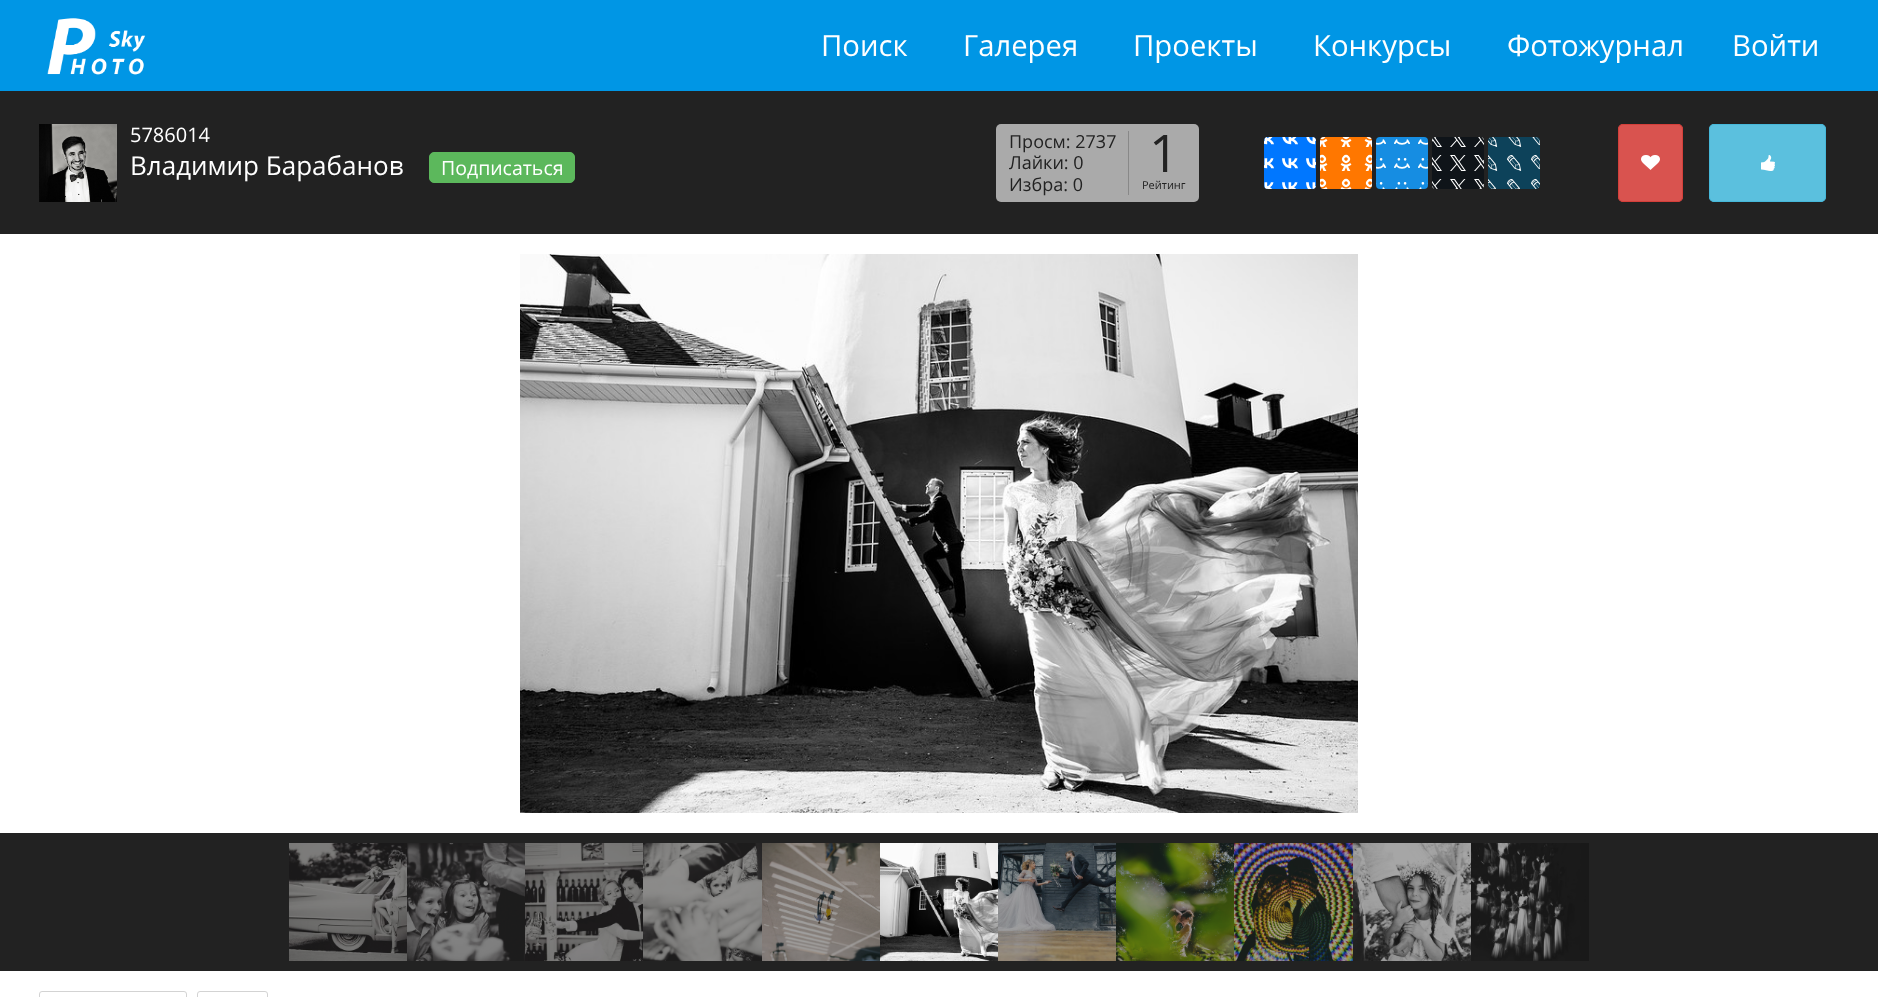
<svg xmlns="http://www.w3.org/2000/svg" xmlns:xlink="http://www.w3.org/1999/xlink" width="1878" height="997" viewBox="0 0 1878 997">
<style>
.cls-1{font:29.25px Open Sans;fill:#ffffff}
.cls-2{font:20px Open Sans;fill:#ffffff}
.cls-3{font:26px Open Sans;fill:#ffffff}
.cls-4{font:19.5px Open Sans;fill:#ffffff}
.cls-5{font:18px Open Sans;fill:#222222}
.cls-6{font:52px Open Sans;fill:#222222}
.cls-7{font:11px Open Sans;fill:#222222}
</style>
<rect width="100%" height="100%" fill="#ffffff"/>
<rect fill="#0096e5" x="0" y="0" width="1878" height="91"/>
<image xlink:href="image0.png" x="47" y="18" width="99" height="57"/>
<rect fill="#222222" x="0" y="91" width="1878" height="143"/>
<image xlink:href="image1.png" x="39" y="124" width="78" height="78"/>
<rect fill="#5cb85c" stroke="#5cb85c" x="429.5" y="152.5" width="145" height="30" rx="4.5"/>
<rect fill="#aaaaaa" x="996" y="124" width="203" height="78" rx="5"/>
<rect fill="#888888" x="1128" y="131" width="1" height="64"/>
<rect fill="#0077ff" x="1264" y="137" width="52" height="52" rx="4"/>
<image xlink:href="image2.png" x="1264" y="137" width="52" height="52"/>
<rect fill="#ff7700" x="1320" y="137" width="52" height="52" rx="4"/>
<image xlink:href="image3.png" x="1320" y="137" width="52" height="52"/>
<rect fill="#168de2" x="1376" y="137" width="52" height="52" rx="4"/>
<image xlink:href="image4.png" x="1376" y="139" width="52" height="50"/>
<rect fill="#0f1419" x="1432" y="137" width="52" height="52" rx="4"/>
<image xlink:href="image5.png" x="1432" y="137" width="52" height="52"/>
<rect fill="#0d425a" x="1488" y="137" width="52" height="52" rx="4"/>
<image xlink:href="image6.png" x="1488" y="137" width="52" height="52"/>
<rect fill="#d9534f" x="1618" y="124" width="65" height="78" rx="5"/>
<image xlink:href="image7.png" x="1641" y="155" width="19" height="15"/>
<rect fill="none" stroke="#d43f3a" x="1618.5" y="124.5" width="64" height="77" rx="4.5"/>
<rect fill="#5bc0de" x="1709" y="124" width="117" height="78" rx="5"/>
<image xlink:href="image8.png" x="1761" y="155" width="14" height="16"/>
<rect fill="none" stroke="#46b8da" x="1709.5" y="124.5" width="116" height="77" rx="4.5"/>
<image xlink:href="image9.png" x="520" y="254" width="838" height="559"/>
<rect fill="#222222" x="0" y="833" width="1878" height="138"/>
<image xlink:href="image10.png" x="289" y="843" width="118" height="118"/>
<image xlink:href="image11.png" x="407" y="843" width="118" height="118"/>
<image xlink:href="image12.png" x="525" y="843" width="118" height="118"/>
<image xlink:href="image13.png" x="643" y="843" width="119" height="118"/>
<image xlink:href="image14.png" x="762" y="843" width="118" height="118"/>
<image xlink:href="image15.png" x="880" y="843" width="118" height="118"/>
<image xlink:href="image16.png" x="998" y="843" width="118" height="118"/>
<image xlink:href="image17.png" x="1116" y="843" width="118" height="118"/>
<image xlink:href="image18.png" x="1234" y="843" width="119" height="118"/>
<image xlink:href="image19.png" x="1353" y="843" width="118" height="118"/>
<image xlink:href="image20.png" x="1471" y="843" width="118" height="118"/>
<rect fill="none" stroke="#d3d3d3" x="39.5" y="991.5" width="147" height="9" rx="2.5"/>
<rect fill="none" stroke="#d3d3d3" x="197.5" y="991.5" width="70" height="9" rx="2.5"/>
<text class="cls-1" x="821" y="56">Поиск</text>
<text class="cls-1" x="963" y="56">Галерея</text>
<text class="cls-1" x="1133" y="56">Проекты</text>
<text class="cls-1" x="1313" y="56">Конкурсы</text>
<text class="cls-1" x="1507" y="56">Фотожурнал</text>
<text class="cls-1" x="1732" y="56">Войти</text>
<text class="cls-2" x="130" y="142">5786014</text>
<text class="cls-3" x="130" y="175">Владимир Барабанов</text>
<text class="cls-4" x="441" y="175">Подписаться</text>
<text class="cls-5"><tspan x="1009" y="148">Просм: 2737</tspan><tspan x="1009" y="169">Лайки: 0</tspan><tspan x="1009" y="191">Избра: 0</tspan></text>
<text class="cls-6" x="1149" y="172">1</text>
<text class="cls-7" x="1142" y="189">Рейтинг</text>
</svg>
